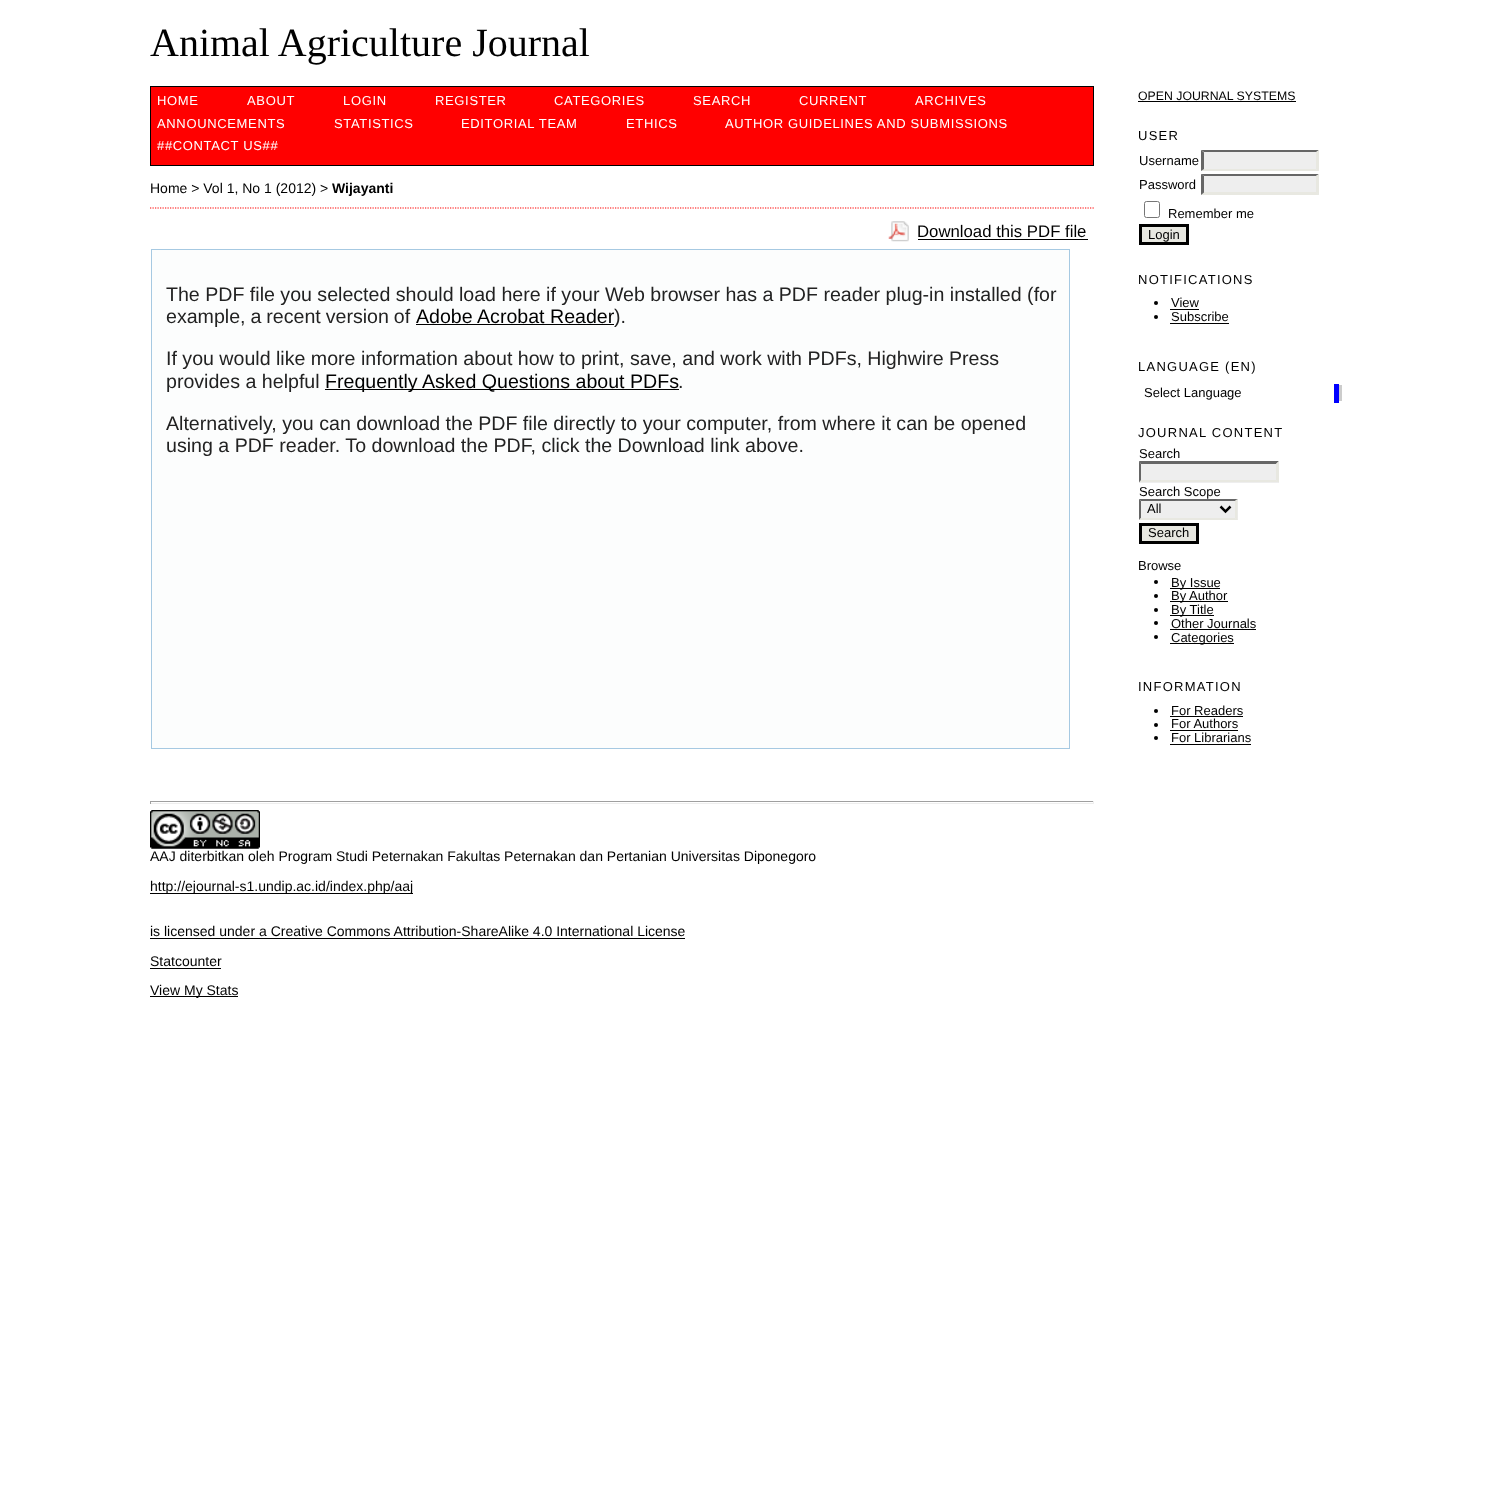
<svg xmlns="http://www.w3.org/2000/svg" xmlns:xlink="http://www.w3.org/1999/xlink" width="1497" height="1485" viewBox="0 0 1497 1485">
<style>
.cls-1{font:40px Liberation Serif;fill:#000000}
.cls-2{font:13px Liberation Sans;letter-spacing:0.65px;fill:#ffffff}
.cls-3{font:14px Liberation Sans;fill:#000000}
.cls-4{font:bold 14px Liberation Sans;fill:#000000}
.cls-5{font:16.75px Liberation Sans;fill:#000000}
.cls-6{font:19.6px Liberation Sans;fill:#222222}
.cls-7{font:19.6px Liberation Sans;fill:#000000}
.cls-8{font:12.3px Liberation Sans;fill:#000000}
.cls-9{font:13px Liberation Sans;letter-spacing:1.25px;fill:#000000}
.cls-10{font:13px Liberation Sans;fill:#000000}
</style>
<rect width="100%" height="100%" fill="#ffffff"/>
<rect fill="#ff0000" stroke="#000000" x="150.5" y="86.5" width="943" height="79"/>
<path fill="none" stroke="#ff0000" stroke-width="1.2" stroke-dasharray="1.25 1.25" d="M150 208H1094"/>
<image xlink:href="image0.png" x="888" y="221" width="21" height="21"/>
<rect fill="#000000" x="918" y="239" width="170" height="1"/>
<rect fill="#fcfdfd" stroke="#a6c9e2" x="151.5" y="249.5" width="918" height="499"/>
<rect fill="#000000" x="416" y="324" width="198" height="1"/>
<rect fill="#000000" x="325" y="389" width="354" height="1"/>
<rect fill="#9f9f9f" x="150" y="801" width="944" height="1"/>
<rect fill="#eeeeee" x="1093" y="801" width="1" height="3"/>
<rect fill="#eeeeee" x="150" y="803" width="944" height="1"/>
<rect fill="#9f9f9f" x="150" y="801" width="1" height="3"/>
<image xlink:href="image1.png" x="150" y="810" width="110" height="39"/>
<rect fill="#000000" x="150" y="893" width="263" height="1"/>
<rect fill="#000000" x="150" y="938" width="535" height="1"/>
<rect fill="#000000" x="150" y="968" width="71" height="1"/>
<rect fill="#000000" x="150" y="996" width="88" height="1"/>
<rect fill="#000000" x="1138" y="101" width="158" height="1"/>
<rect fill="#eeeeee" x="1201" y="150" width="118" height="21"/>
<path fill="#666666" d="M1201 150H1319L1316 152H1204Z"/>
<path fill="#e8e8e1" d="M1319 150V171L1316 169V152.5Z"/>
<path fill="#e8e8e1" d="M1319 171H1201L1204 169H1316Z"/>
<path fill="#666666" d="M1201 171V150L1204 152.5V169Z"/>
<rect fill="#eeeeee" x="1201" y="174" width="118" height="21"/>
<path fill="#666666" d="M1201 174H1319L1316 176H1204Z"/>
<path fill="#e8e8e1" d="M1319 174V195L1316 192.5V176Z"/>
<path fill="#e8e8e1" d="M1319 195H1201L1204 192H1316Z"/>
<path fill="#666666" d="M1201 195V174L1204 176V192.5Z"/>
<rect fill="none" stroke="#767676" x="1144.5" y="201.5" width="15" height="16" rx="2"/>
<rect fill="#e8e8e1" stroke="#000000" stroke-width="3" x="1140.5" y="225.5" width="47" height="18"/>
<circle fill="#000000" cx="1156" cy="303" r="2"/>
<rect fill="#000000" x="1170" y="309" width="29" height="1"/>
<circle fill="#000000" cx="1156" cy="317" r="2"/>
<rect fill="#000000" x="1170" y="323" width="59" height="1"/>
<rect fill="#0000ff" x="1334" y="384" width="5" height="19"/>
<rect fill="#cccccc" x="1339" y="385" width="3" height="16"/>
<rect fill="#eeeeee" x="1139" y="461" width="140" height="22"/>
<path fill="#666666" d="M1139 461H1279L1276 464H1141Z"/>
<path fill="#e8e8e1" d="M1279 461V482.5L1276 480V464Z"/>
<path fill="#e8e8e1" d="M1279 482H1139L1141 480H1276Z"/>
<path fill="#666666" d="M1139 482.5V461L1141 464V480Z"/>
<rect fill="#eeeeee" x="1139" y="499" width="99" height="21"/>
<path fill="#666666" d="M1139 499H1238L1235 501H1141Z"/>
<path fill="#e8e8e1" d="M1237.5 499V520L1235 517.5V501Z"/>
<path fill="#e8e8e1" d="M1238 520H1139L1141 518H1235Z"/>
<path fill="#666666" d="M1139 520V499L1141 501V517.5Z"/>
<path fill="none" stroke="#000000" stroke-width="2.5" d="M1220.5 506.5L1225.5 511.5L1230.5 506.5"/>
<rect fill="#e8e8e1" stroke="#000000" stroke-width="3" x="1140.5" y="524.5" width="57" height="18"/>
<circle fill="#000000" cx="1156" cy="582" r="2"/>
<rect fill="#000000" x="1170" y="588" width="50" height="1"/>
<circle fill="#000000" cx="1156" cy="596" r="2"/>
<rect fill="#000000" x="1170" y="601" width="58" height="1"/>
<circle fill="#000000" cx="1156" cy="610" r="2"/>
<rect fill="#000000" x="1170" y="615" width="44" height="1"/>
<circle fill="#000000" cx="1156" cy="623" r="2"/>
<rect fill="#000000" x="1170" y="629" width="86" height="1"/>
<circle fill="#000000" cx="1156" cy="637" r="2"/>
<rect fill="#000000" x="1170" y="643" width="64" height="1"/>
<circle fill="#000000" cx="1156" cy="711" r="2"/>
<rect fill="#000000" x="1170" y="716" width="73" height="1"/>
<circle fill="#000000" cx="1156" cy="725" r="2"/>
<rect fill="#000000" x="1170" y="730" width="68" height="1"/>
<circle fill="#000000" cx="1156" cy="738" r="2"/>
<rect fill="#000000" x="1170" y="744" width="81" height="1"/>
<text class="cls-1" x="150" y="56">Animal Agriculture Journal</text>
<text class="cls-2" x="157" y="105">HOME</text>
<text class="cls-2" x="247" y="105">ABOUT</text>
<text class="cls-2" x="343" y="105">LOGIN</text>
<text class="cls-2" x="435" y="105">REGISTER</text>
<text class="cls-2" x="554" y="105">CATEGORIES</text>
<text class="cls-2" x="693" y="105">SEARCH</text>
<text class="cls-2" x="799" y="105">CURRENT</text>
<text class="cls-2" x="915" y="105">ARCHIVES</text>
<text class="cls-2" x="157" y="128">ANNOUNCEMENTS</text>
<text class="cls-2" x="334" y="128">STATISTICS</text>
<text class="cls-2" x="461" y="128">EDITORIAL TEAM</text>
<text class="cls-2" x="626" y="128">ETHICS</text>
<text class="cls-2" x="725" y="128">AUTHOR GUIDELINES AND SUBMISSIONS</text>
<text class="cls-2" x="157" y="150">##CONTACT US##</text>
<text class="cls-3" x="150" y="193">Home &gt; Vol 1, No 1 (2012) &gt;</text>
<text class="cls-4" x="332" y="193">Wijayanti</text>
<text class="cls-5" x="917" y="237">Download this PDF file</text>
<text class="cls-6"><tspan x="166" y="301">The PDF file you selected should load here if your Web browser has a PDF reader plug-in installed (for</tspan><tspan x="166" y="323" word-spacing="-0.5">example, a recent version of</tspan></text>
<text class="cls-7" x="416" y="323">Adobe Acrobat Reader</text>
<text class="cls-6" x="614" y="323">).</text>
<text class="cls-6"><tspan x="166" y="365">If you would like more information about how to print, save, and work with PDFs, Highwire Press</tspan><tspan x="166" y="388">provides a helpful</tspan></text>
<text class="cls-7" x="325" y="388">Frequently Asked Questions about PDFs</text>
<text class="cls-6" x="678" y="388">.</text>
<text class="cls-6"><tspan x="166" y="430">Alternatively, you can download the PDF file directly to your computer, from where it can be opened</tspan><tspan x="166" y="452">using a PDF reader. To download the PDF, click the Download link above.</tspan></text>
<text class="cls-3" x="150" y="861">AAJ diterbitkan oleh Program Studi Peternakan Fakultas Peternakan dan Pertanian Universitas Diponegoro</text>
<text class="cls-3" x="150" y="891">http://ejournal-s1.undip.ac.id/index.php/aaj</text>
<text class="cls-3" x="150" y="936">is licensed under a Creative Commons Attribution-ShareAlike 4.0 International License</text>
<text class="cls-3" x="150" y="966">Statcounter</text>
<text class="cls-3" x="150" y="995">View My Stats</text>
<text class="cls-8" x="1138" y="100">OPEN JOURNAL SYSTEMS</text>
<text class="cls-9" x="1138" y="140">USER</text>
<text class="cls-10"><tspan x="1139" y="165">Username</tspan><tspan x="1139" y="189">Password</tspan></text>
<text class="cls-10" x="1168" y="218">Remember me</text>
<text class="cls-10" x="1148" y="239">Login</text>
<text class="cls-9" x="1138" y="284">NOTIFICATIONS</text>
<text class="cls-10"><tspan x="1171" y="307">View</tspan><tspan x="1171" y="321">Subscribe</tspan></text>
<text class="cls-9" x="1138" y="371">LANGUAGE (EN)</text>
<text class="cls-10" x="1144" y="397">Select Language</text>
<text class="cls-9" x="1138" y="437">JOURNAL CONTENT</text>
<text class="cls-10" x="1139" y="458">Search</text>
<text class="cls-10" x="1139" y="496">Search Scope</text>
<text class="cls-10" x="1147" y="513">All</text>
<text class="cls-10" x="1148" y="537">Search</text>
<text class="cls-10" x="1138" y="570">Browse</text>
<text class="cls-10"><tspan x="1171" y="587">By Issue</tspan><tspan x="1171" y="600">By Author</tspan><tspan x="1171" y="614">By Title</tspan><tspan x="1171" y="628">Other Journals</tspan><tspan x="1171" y="642">Categories</tspan></text>
<text class="cls-9" x="1138" y="691">INFORMATION</text>
<text class="cls-10"><tspan x="1171" y="715">For Readers</tspan><tspan x="1171" y="728">For Authors</tspan><tspan x="1171" y="742">For Librarians</tspan></text>
</svg>
